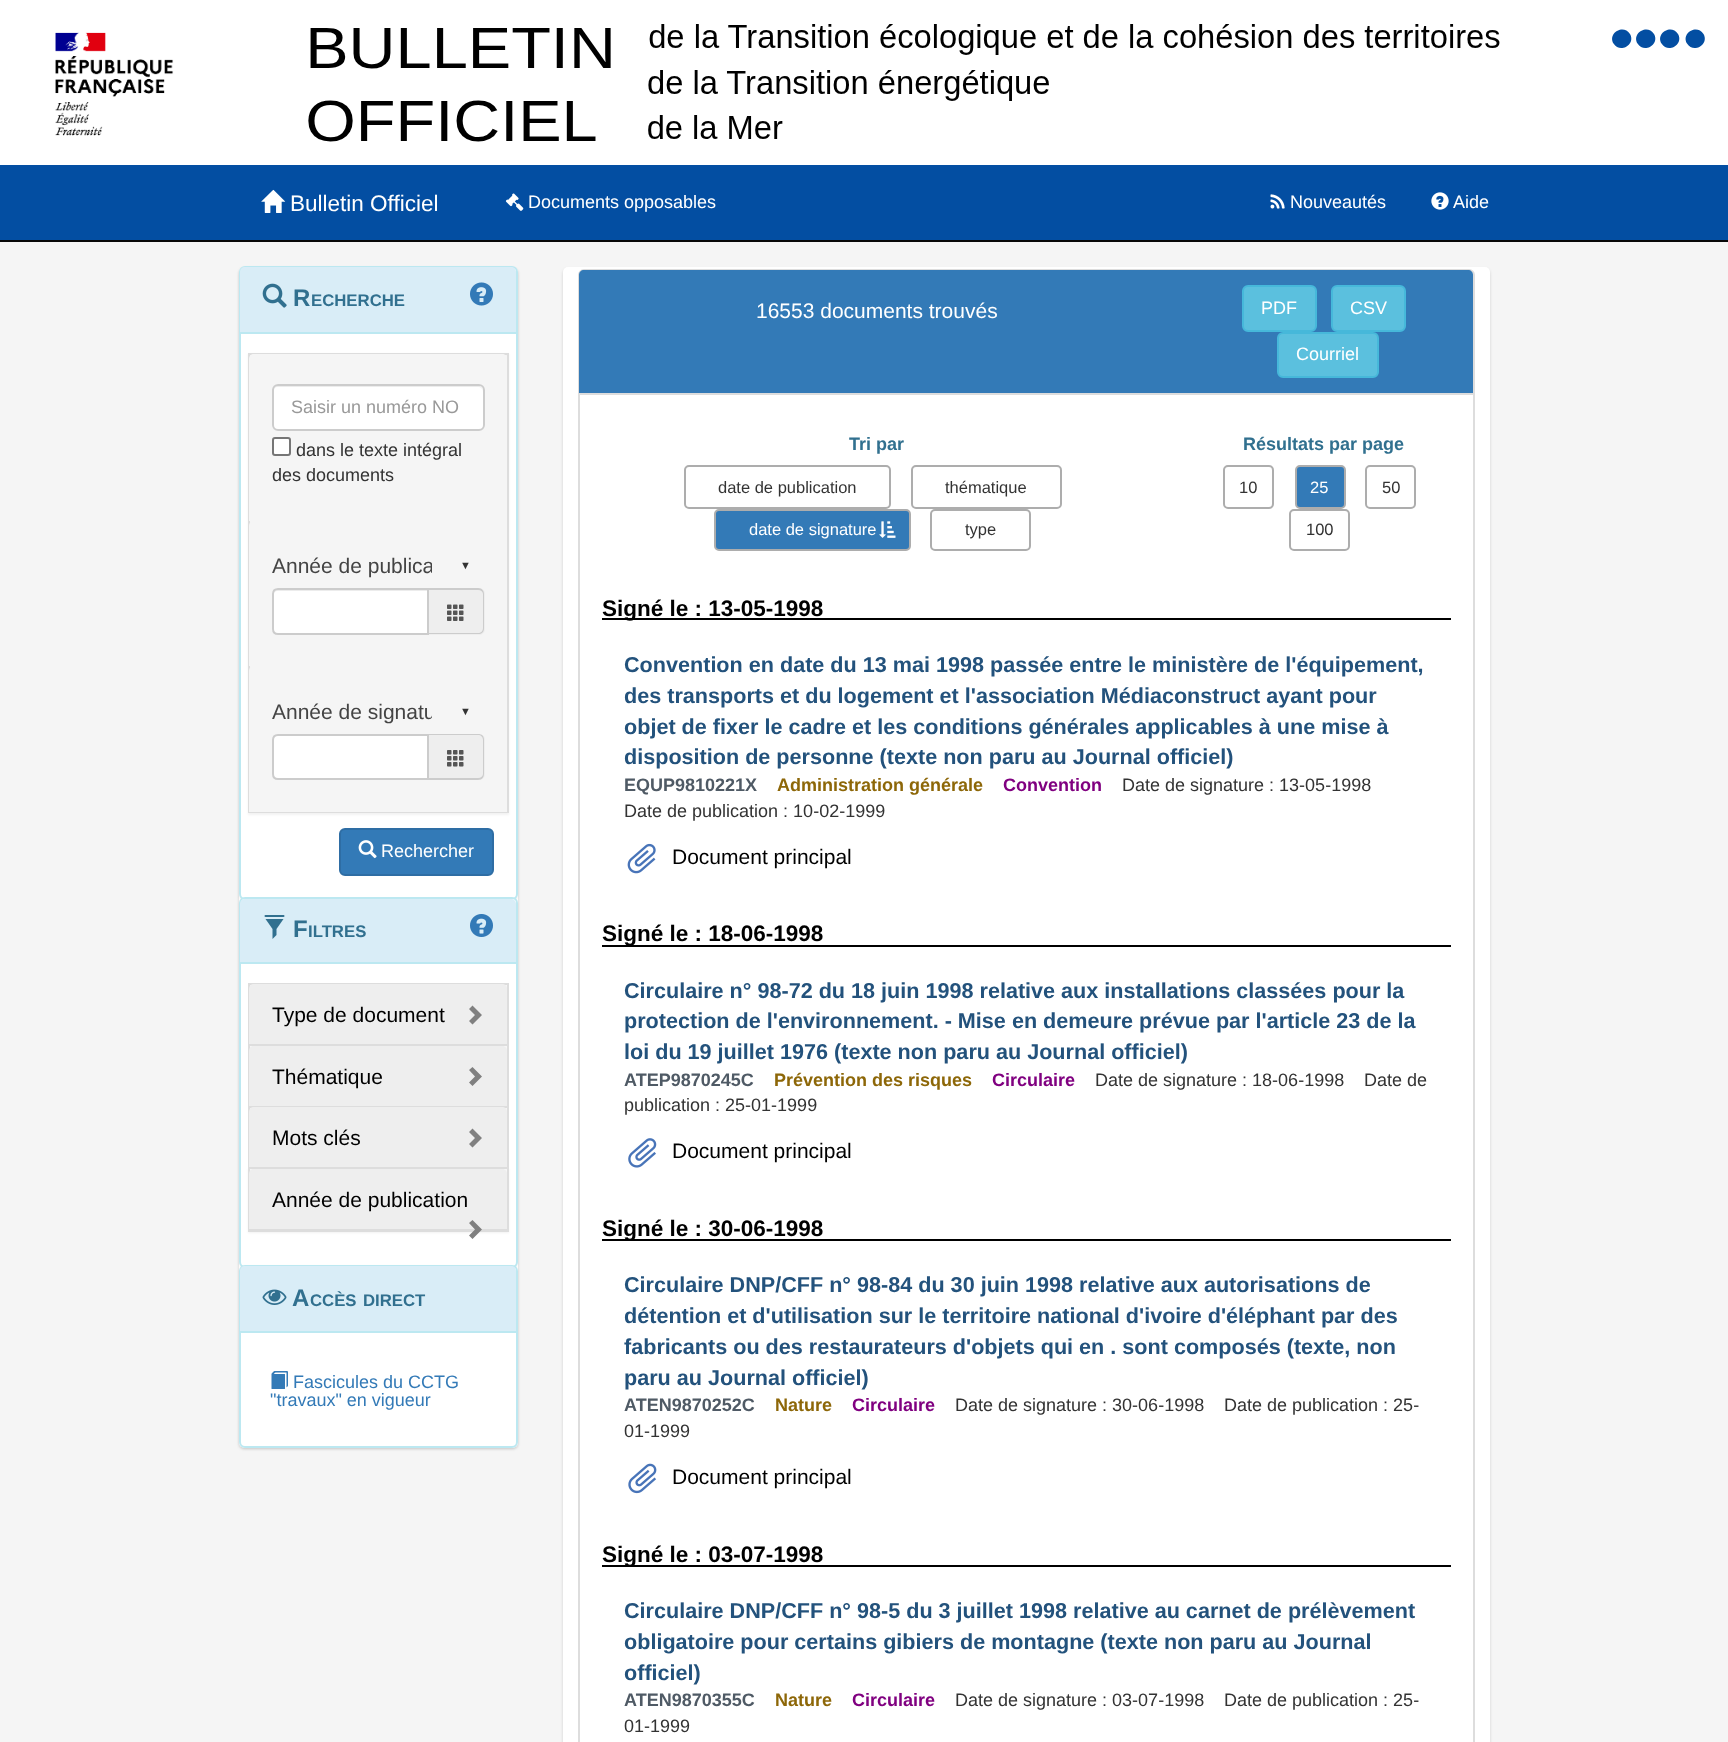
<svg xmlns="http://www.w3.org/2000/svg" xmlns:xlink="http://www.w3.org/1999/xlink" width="1728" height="1742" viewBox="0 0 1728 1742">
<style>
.cls-1{font:22.5px Liberation Sans;fill:#ffffff}
.cls-2{font:18px Liberation Sans;fill:#ffffff}
.cls-3{font:bold 24px Liberation Sans;fill:#31708f}
.cls-4{font:bold 16.75px Liberation Sans;fill:#31708f}
.cls-5{font:18px Liberation Sans;fill:#999999}
.cls-6{font:18px Liberation Sans;fill:#333333}
.cls-7{font:21px Liberation Sans;fill:#444444}
.cls-8{font:11px Liberation Sans;fill:#333333}
.cls-9{font:21px Liberation Sans;fill:#000000}
.cls-10{font:18px Liberation Sans;fill:#337ab7}
.cls-11{font:21px Liberation Sans;fill:#ffffff}
.cls-12{font:bold 18px Liberation Sans;fill:#31708f}
.cls-13{font:16.5px Liberation Sans;fill:#333333}
.cls-14{font:16.5px Liberation Sans;fill:#ffffff}
.cls-15{font:bold 22.5px Liberation Sans;fill:#000000}
.cls-16{font:bold 21.6px Liberation Sans;fill:#23527c}
.cls-17{font:bold 18px Liberation Sans;fill:#4f5a65}
.cls-18{font:bold 18px Liberation Sans;fill:#8d6708}
.cls-19{font:bold 18px Liberation Sans;fill:#800080}
</style>
<defs>
<clipPath id="clip1"><rect x="272" y="551" width="160" height="30"/></clipPath>
<clipPath id="clip2"><rect x="272" y="696" width="160" height="30"/></clipPath>
</defs>
<rect width="100%" height="100%" fill="#f5f5f5"/>
<rect fill="#ffffff" x="0" y="0" width="1728" height="165"/>
<image xlink:href="image0.png" x="308" y="24" width="1192" height="118"/>
<image xlink:href="image1.png" x="55" y="32" width="119" height="104"/>
<path fill="#034ea2" d="M1630 34C1636 44.5 1620 54 1613.5 43.5C1607.5 33 1623.5 23.5 1630 34ZM1654 34C1660 44.5 1644 54 1637.5 43.5C1631.5 33 1647.5 23.5 1654 34Z"/>
<path fill="#034ea2" d="M1678 34C1684 44.5 1668 54 1661.5 43.5C1655.5 33 1671.5 23.5 1678 34ZM1703.5 34C1709.5 44.5 1693.5 54 1687 43.5C1681 33 1697 23.5 1703.5 34Z"/>
<rect fill="#034ea2" x="0" y="165" width="1728" height="75"/>
<rect fill="#080808" x="0" y="240" width="1728" height="2"/>
<image xlink:href="image2.png" x="261" y="189" width="25" height="24"/>
<image xlink:href="image3.png" x="505" y="193" width="19" height="18"/>
<image xlink:href="image4.png" x="1270" y="194" width="15" height="15"/>
<image xlink:href="image5.png" x="1431" y="192" width="18" height="18"/>
<rect fill="#000000" fill-opacity="0.15" filter="blur(1.5px)" x="239" y="269" width="279" height="1180" rx="5"/>
<rect fill="#ffffff" x="239" y="267" width="279" height="1181" rx="5"/>
<rect fill="#000000" fill-opacity="0.05" filter="blur(1px)" x="239" y="267" width="279" height="635" rx="6"/>
<rect fill="#ffffff" stroke="#bce8f1" stroke-width="2" x="240" y="267" width="277" height="632" rx="5"/>
<path fill="#d9edf7" d="M245 267H511C514 267 516 269 516 272V333H240V272C240 269 242 267 245 267Z"/>
<rect fill="#bce8f1" x="240" y="332" width="276" height="2"/>
<image xlink:href="image6.png" x="262" y="283" width="25" height="25"/>
<image xlink:href="image7.png" x="470" y="282" width="23" height="24"/>
<rect fill="#000000" fill-opacity="0.05" filter="blur(1px)" x="248" y="354" width="261" height="461"/>
<rect fill="#f5f5f5" x="250" y="356" width="257" height="315"/>
<rect fill="none" stroke="#dddddd" stroke-width="2" x="249" y="354" width="259" height="458"/>
<path fill="#f5f5f5" d="M254 354H502C505 354 507 356 507 359V521H249V359C249 356 251 354 254 354Z"/>
<rect fill="#ffffff" x="272" y="384" width="213" height="47" rx="6"/>
<path fill="#ececec" d="M278 387H478C481 387 483 389 483 392V391C483 388 481 386 478 386H278C275 386 273 388 273 391V392C273 389 275 387 278 387Z"/>
<rect fill="none" stroke="#cccccc" stroke-width="2" x="273" y="385" width="211" height="45" rx="5"/>
<rect fill="#ffffff" stroke="#767676" stroke-width="2" x="273" y="438" width="17" height="17" rx="2"/>
<path fill="#f5f5f5" d="M254 521H502C505 521 507 523 507 526V666H249V526C249 523 251 521 254 521Z"/>
<path fill="#ffffff" d="M278 588H429V635H278C274.5 635 272 632.5 272 629V594C272 590.5 274.5 588 278 588Z"/>
<path fill="#ececec" d="M278 591H428V590H278C275 590 273 592 273 595V596C273 593 275 591 278 591Z"/>
<path fill="none" stroke="#cccccc" stroke-width="2" d="M278 589H428V634H278C275 634 273 632 273 629V594C273 591 275 589 278 589Z"/>
<path fill="#eeeeee" d="M429 588H479C482.5 588 485 590.5 485 594V629C485 632.5 482.5 635 479 635H429Z"/>
<path fill="#cccccc" fill-rule="evenodd" d="M429 588H478C482 588 484 591 484 594V628C484 632 482 634 478 634H429ZM429 590H478C481 590 483 592 483 594V628C483 631 481 633 478 633H429Z"/>
<image xlink:href="image8.png" x="447" y="604" width="17" height="17"/>
<path fill="#f5f5f5" d="M254 666H502C505 666 507 668 507 671V812H249V671C249 668 251 666 254 666Z"/>
<path fill="#ffffff" stroke="#cccccc" stroke-width="2" d="M278 735H428V779H278C275 779 273 777 273 774V740C273 737 275 735 278 735Z"/>
<path fill="#eeeeee" d="M429 734H479C482.5 734 485 736.5 485 740V774C485 777.5 482.5 780 479 780H429Z"/>
<path fill="#cccccc" fill-rule="evenodd" d="M429 734H478C482 734 484 736 484 740V774C484 777 482 780 478 780H429ZM429 735H478C481 735 483 737 483 740V774C483 776 481 778 478 778H429Z"/>
<image xlink:href="image9.png" x="447" y="750" width="17" height="17"/>
<rect fill="#337ab7" stroke="#2e6da4" stroke-width="2" x="340" y="829" width="153" height="46" rx="5"/>
<image xlink:href="image10.png" x="358" y="840" width="19" height="19"/>
<rect fill="#000000" fill-opacity="0.05" filter="blur(1px)" x="239" y="899" width="279" height="370" rx="6"/>
<rect fill="#ffffff" stroke="#bce8f1" stroke-width="2" x="240" y="898" width="277" height="369" rx="5"/>
<path fill="#d9edf7" d="M245 899H511C514 899 516 901 516 904V963H240V904C240 901 242 899 245 899Z"/>
<rect fill="#bce8f1" x="240" y="962" width="276" height="2"/>
<image xlink:href="image11.png" x="264" y="915" width="21" height="24"/>
<image xlink:href="image12.png" x="470" y="914" width="23" height="23"/>
<rect fill="#f5f5f5" x="250" y="985" width="257" height="4"/>
<rect fill="none" stroke="#dddddd" stroke-width="2" x="249" y="984" width="259" height="62"/>
<path fill="#eeeeee" d="M254 984H502C505 984 507 986 507 989V1046H249V989C249 986 251 984 254 984Z"/>
<path fill="#808080" d="M482 1015L472.5 1024.5L469 1021L475 1015L469 1009L472.5 1005.5Z"/>
<rect fill="#f5f5f5" x="250" y="1046" width="257" height="5"/>
<rect fill="none" stroke="#dddddd" stroke-width="2" x="249" y="1045" width="259" height="63"/>
<path fill="#eeeeee" d="M254 1046H502C505 1046 507 1048 507 1051V1107H249V1051C249 1048 251 1046 254 1046Z"/>
<path fill="#808080" d="M482 1076.5L472.5 1086L469 1082.5L475 1076.5L469 1070L472.5 1067Z"/>
<rect fill="#f5f5f5" x="250" y="1108" width="257" height="4"/>
<rect fill="none" stroke="#dddddd" stroke-width="2" x="249" y="1107" width="259" height="62"/>
<path fill="#eeeeee" d="M254 1107H502C505 1107 507 1109 507 1112V1169H249V1112C249 1109 251 1107 254 1107Z"/>
<path fill="#808080" d="M482 1138L472.5 1147.5L469 1144L475 1138L469 1132L472.5 1128.5Z"/>
<rect fill="#000000" fill-opacity="0.05" filter="blur(1px)" x="248" y="1169" width="261" height="64"/>
<rect fill="#f5f5f5" x="250" y="1169" width="257" height="5"/>
<rect fill="none" stroke="#dddddd" stroke-width="2" x="249" y="1168" width="259" height="63"/>
<path fill="#eeeeee" d="M254 1169H502C505 1169 507 1171 507 1174V1230H249V1174C249 1171 251 1169 254 1169Z"/>
<rect fill="#dddddd" x="249" y="1229" width="258" height="1"/>
<path fill="#808080" d="M482 1229.5L472.5 1239L469 1235.5L475 1229.5L469 1223L472.5 1220Z"/>
<rect fill="#000000" fill-opacity="0.05" filter="blur(1px)" x="239" y="1266" width="279" height="183" rx="6"/>
<rect fill="#ffffff" stroke="#bce8f1" stroke-width="2" x="240" y="1266" width="277" height="181" rx="5"/>
<path fill="#d9edf7" d="M245 1266H511C514 1266 516 1268 516 1271V1332H240V1271C240 1268 242 1266 245 1266Z"/>
<rect fill="#bce8f1" x="240" y="1331" width="276" height="2"/>
<image xlink:href="image13.png" x="262" y="1289" width="25" height="16"/>
<image xlink:href="image14.png" x="271" y="1371" width="17" height="18"/>
<rect fill="#000000" fill-opacity="0.15" filter="blur(1.5px)" x="563" y="269" width="927" height="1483" rx="5"/>
<rect fill="#ffffff" x="563" y="267" width="927" height="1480" rx="5"/>
<rect fill="none" stroke="#dddddd" stroke-width="2" x="579" y="270" width="895" height="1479" rx="5"/>
<path fill="#337ab7" d="M584 270H1468C1471 270 1473 272 1473 275V395H579V275C579 272 581 270 584 270Z"/>
<rect fill="#dddddd" x="579" y="393" width="894" height="2"/>
<rect fill="#5bc0de" stroke="#46b8da" stroke-width="2" x="1243" y="286" width="73" height="45" rx="5"/>
<rect fill="#5bc0de" stroke="#46b8da" stroke-width="2" x="1332" y="286" width="73" height="45" rx="5"/>
<rect fill="#5bc0de" stroke="#46b8da" stroke-width="2" x="1278" y="333" width="100" height="44" rx="5"/>
<rect fill="none" stroke="#adadad" stroke-width="2" x="685" y="466" width="205" height="42" rx="4"/>
<rect fill="none" stroke="#adadad" stroke-width="2" x="912" y="466" width="149" height="42" rx="4"/>
<rect fill="#337ab7" stroke="#adadad" stroke-width="2" x="715" y="510" width="195" height="40" rx="4"/>
<image xlink:href="image15.png" x="879" y="521" width="17" height="17"/>
<rect fill="none" stroke="#adadad" stroke-width="2" x="931" y="510" width="99" height="40" rx="4"/>
<rect fill="none" stroke="#adadad" stroke-width="2" x="1224" y="466" width="49" height="42" rx="4"/>
<rect fill="#337ab7" stroke="#adadad" stroke-width="2" x="1296" y="466" width="49" height="42" rx="4"/>
<rect fill="none" stroke="#adadad" stroke-width="2" x="1366" y="466" width="49" height="42" rx="4"/>
<rect fill="none" stroke="#adadad" stroke-width="2" x="1290" y="510" width="59" height="40" rx="4"/>
<rect fill="#000000" x="602" y="618" width="849" height="2"/>
<image xlink:href="image16.png" x="627" y="843" width="29" height="31"/>
<rect fill="#000000" x="602" y="945" width="849" height="2"/>
<image xlink:href="image17.png" x="628" y="1138" width="29" height="30"/>
<rect fill="#000000" x="602" y="1239" width="849" height="2"/>
<image xlink:href="image18.png" x="628" y="1463" width="29" height="31"/>
<rect fill="#000000" x="602" y="1565" width="849" height="2"/>
<text class="cls-1" x="290" y="211">Bulletin Officiel</text>
<text class="cls-2" x="528" y="208">Documents opposables</text>
<text class="cls-2" x="1290" y="208">Nouveautés</text>
<text class="cls-2" x="1453" y="208">Aide</text>
<text class="cls-3" x="293" y="306">R</text>
<text class="cls-4" x="311" y="306">ECHERCHE</text>
<text class="cls-5" x="291" y="413">Saisir un numéro NO</text>
<text class="cls-6" x="296" y="456">dans le texte intégral</text>
<text class="cls-6" x="272" y="481">des documents</text>
<g clip-path="url(#clip1)">
<text class="cls-7" x="272" y="573">Année de publica</text>
</g>
<text class="cls-8" x="460" y="569">▼</text>
<g clip-path="url(#clip2)">
<text class="cls-7" x="272" y="719">Année de signatu</text>
</g>
<text class="cls-8" x="460" y="715">▼</text>
<text class="cls-2" x="381" y="857">Rechercher</text>
<text class="cls-3" x="293" y="937">F</text>
<text class="cls-4" x="308" y="937">ILTRES</text>
<text class="cls-9" x="272" y="1022">Type de document</text>
<text class="cls-9" x="272" y="1084">Thématique</text>
<text class="cls-9" x="272" y="1145">Mots clés</text>
<text class="cls-9" x="272" y="1207">Année de publication</text>
<text class="cls-3" x="292" y="1306">A</text>
<text class="cls-4" x="310" y="1306">CCÈS</text>
<text class="cls-4" x="363" y="1306">DIRECT</text>
<text class="cls-10" x="293" y="1388">Fascicules du CCTG</text>
<text class="cls-10" x="270" y="1406">"travaux" en vigueur</text>
<text class="cls-11" x="756" y="318">16553 documents trouvés</text>
<text class="cls-2" x="1261" y="314">PDF</text>
<text class="cls-2" x="1350" y="314">CSV</text>
<text class="cls-2" x="1296" y="360">Courriel</text>
<text class="cls-12" x="849" y="450">Tri par</text>
<text class="cls-13" x="718" y="493">date de publication</text>
<text class="cls-13" x="945" y="493">thématique</text>
<text class="cls-14" x="749" y="535">date de signature</text>
<text class="cls-13" x="965" y="535">type</text>
<text class="cls-12" x="1243" y="450">Résultats par page</text>
<text class="cls-13" x="1239" y="493">10</text>
<text class="cls-14" x="1310" y="493">25</text>
<text class="cls-13" x="1382" y="493">50</text>
<text class="cls-13" x="1306" y="535">100</text>
<text class="cls-15" x="602" y="616">Signé le : 13-05-1998</text>
<text class="cls-16"><tspan x="624" y="672">Convention en date du 13 mai 1998 passée entre le ministère de l'équipement,</tspan><tspan x="624" y="703">des transports et du logement et l'association Médiaconstruct ayant pour</tspan><tspan x="624" y="734">objet de fixer le cadre et les conditions générales applicables à une mise à</tspan><tspan x="624" y="764">disposition de personne (texte non paru au Journal officiel)</tspan></text>
<text class="cls-17" x="624" y="791">EQUP9810221X</text>
<text class="cls-18" x="777" y="791">Administration générale</text>
<text class="cls-19" x="1003" y="791">Convention</text>
<text class="cls-6" x="1122" y="791">Date de signature : 13-05-1998</text>
<text class="cls-6" x="624" y="817">Date de publication : 10-02-1999</text>
<text class="cls-9" x="672" y="864">Document principal</text>
<text class="cls-15" x="602" y="941">Signé le : 18-06-1998</text>
<text class="cls-16"><tspan x="624" y="998">Circulaire n° 98-72 du 18 juin 1998 relative aux installations classées pour la</tspan><tspan x="624" y="1028">protection de l'environnement. - Mise en demeure prévue par l'article 23 de la</tspan><tspan x="624" y="1059">loi du 19 juillet 1976 (texte non paru au Journal officiel)</tspan></text>
<text class="cls-17" x="624" y="1086">ATEP9870245C</text>
<text class="cls-18" x="774" y="1086">Prévention des risques</text>
<text class="cls-19" x="992" y="1086">Circulaire</text>
<text class="cls-6" x="1095" y="1086">Date de signature : 18-06-1998</text>
<text class="cls-6" x="1364" y="1086">Date de</text>
<text class="cls-6" x="624" y="1111">publication : 25-01-1999</text>
<text class="cls-9" x="672" y="1158">Document principal</text>
<text class="cls-15" x="602" y="1236">Signé le : 30-06-1998</text>
<text class="cls-16"><tspan x="624" y="1292">Circulaire DNP/CFF n° 98-84 du 30 juin 1998 relative aux autorisations de</tspan><tspan x="624" y="1323">détention et d'utilisation sur le territoire national d'ivoire d'éléphant par des</tspan><tspan x="624" y="1354">fabricants ou des restaurateurs d'objets qui en . sont composés (texte, non</tspan><tspan x="624" y="1385">paru au Journal officiel)</tspan></text>
<text class="cls-17" x="624" y="1411">ATEN9870252C</text>
<text class="cls-18" x="775" y="1411">Nature</text>
<text class="cls-19" x="852" y="1411">Circulaire</text>
<text class="cls-6" x="955" y="1411">Date de signature : 30-06-1998</text>
<text class="cls-6" x="1224" y="1411">Date de publication : 25-</text>
<text class="cls-6" x="624" y="1437">01-1999</text>
<text class="cls-9" x="672" y="1484">Document principal</text>
<text class="cls-15" x="602" y="1562">Signé le : 03-07-1998</text>
<text class="cls-16"><tspan x="624" y="1618">Circulaire DNP/CFF n° 98-5 du 3 juillet 1998 relative au carnet de prélèvement</tspan><tspan x="624" y="1649">obligatoire pour certains gibiers de montagne (texte non paru au Journal</tspan><tspan x="624" y="1680">officiel)</tspan></text>
<text class="cls-17" x="624" y="1706">ATEN9870355C</text>
<text class="cls-18" x="775" y="1706">Nature</text>
<text class="cls-19" x="852" y="1706">Circulaire</text>
<text class="cls-6" x="955" y="1706">Date de signature : 03-07-1998</text>
<text class="cls-6" x="1224" y="1706">Date de publication : 25-</text>
<text class="cls-6" x="624" y="1732">01-1999</text>
</svg>
